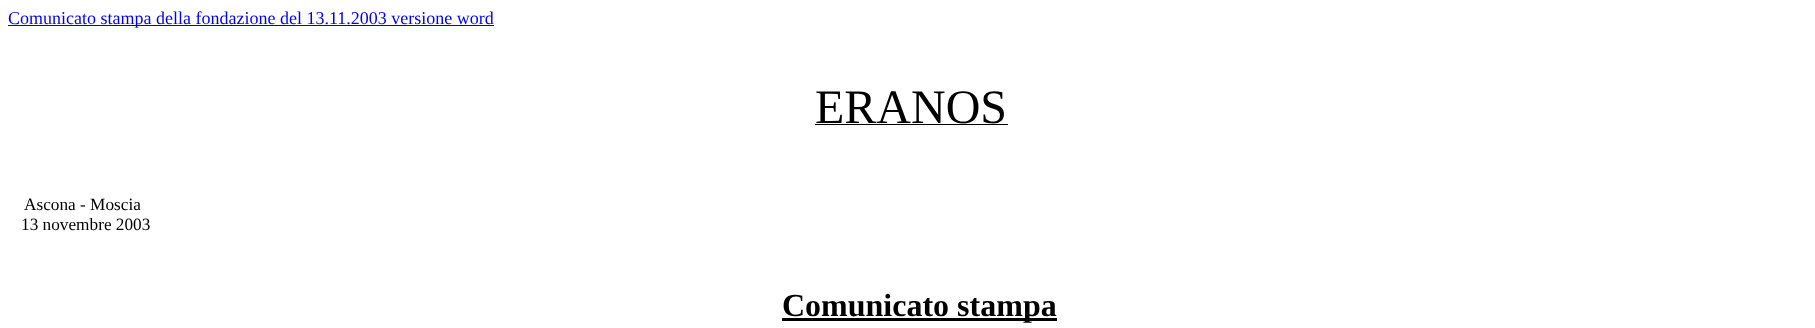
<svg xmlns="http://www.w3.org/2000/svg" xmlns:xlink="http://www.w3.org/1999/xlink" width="1815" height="328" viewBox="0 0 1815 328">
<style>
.cls-1{font:18px Liberation Serif;fill:#0000ee}
.cls-2{font:48px Liberation Serif;fill:#000000}
.cls-3{font:17.25px Liberation Serif;fill:#000000}
.cls-4{font:bold 32px Liberation Serif;fill:#000000}
</style>
<rect width="100%" height="100%" fill="#ffffff"/>
<rect fill="#0000ee" x="8" y="25" width="486" height="1"/>
<rect fill="#000000" x="815" y="124" width="193" height="1"/>
<rect fill="#000000" x="782" y="318" width="275" height="3"/>
<text class="cls-1" x="8" y="24">Comunicato stampa della fondazione del 13.11.2003 versione word</text>
<text class="cls-2" x="815" y="123">ERANOS</text>
<text class="cls-3" x="24" y="210">Ascona - Moscia</text>
<text class="cls-3" x="21" y="230">13 novembre 2003</text>
<text class="cls-4" x="782" y="316">Comunicato stampa</text>
</svg>
